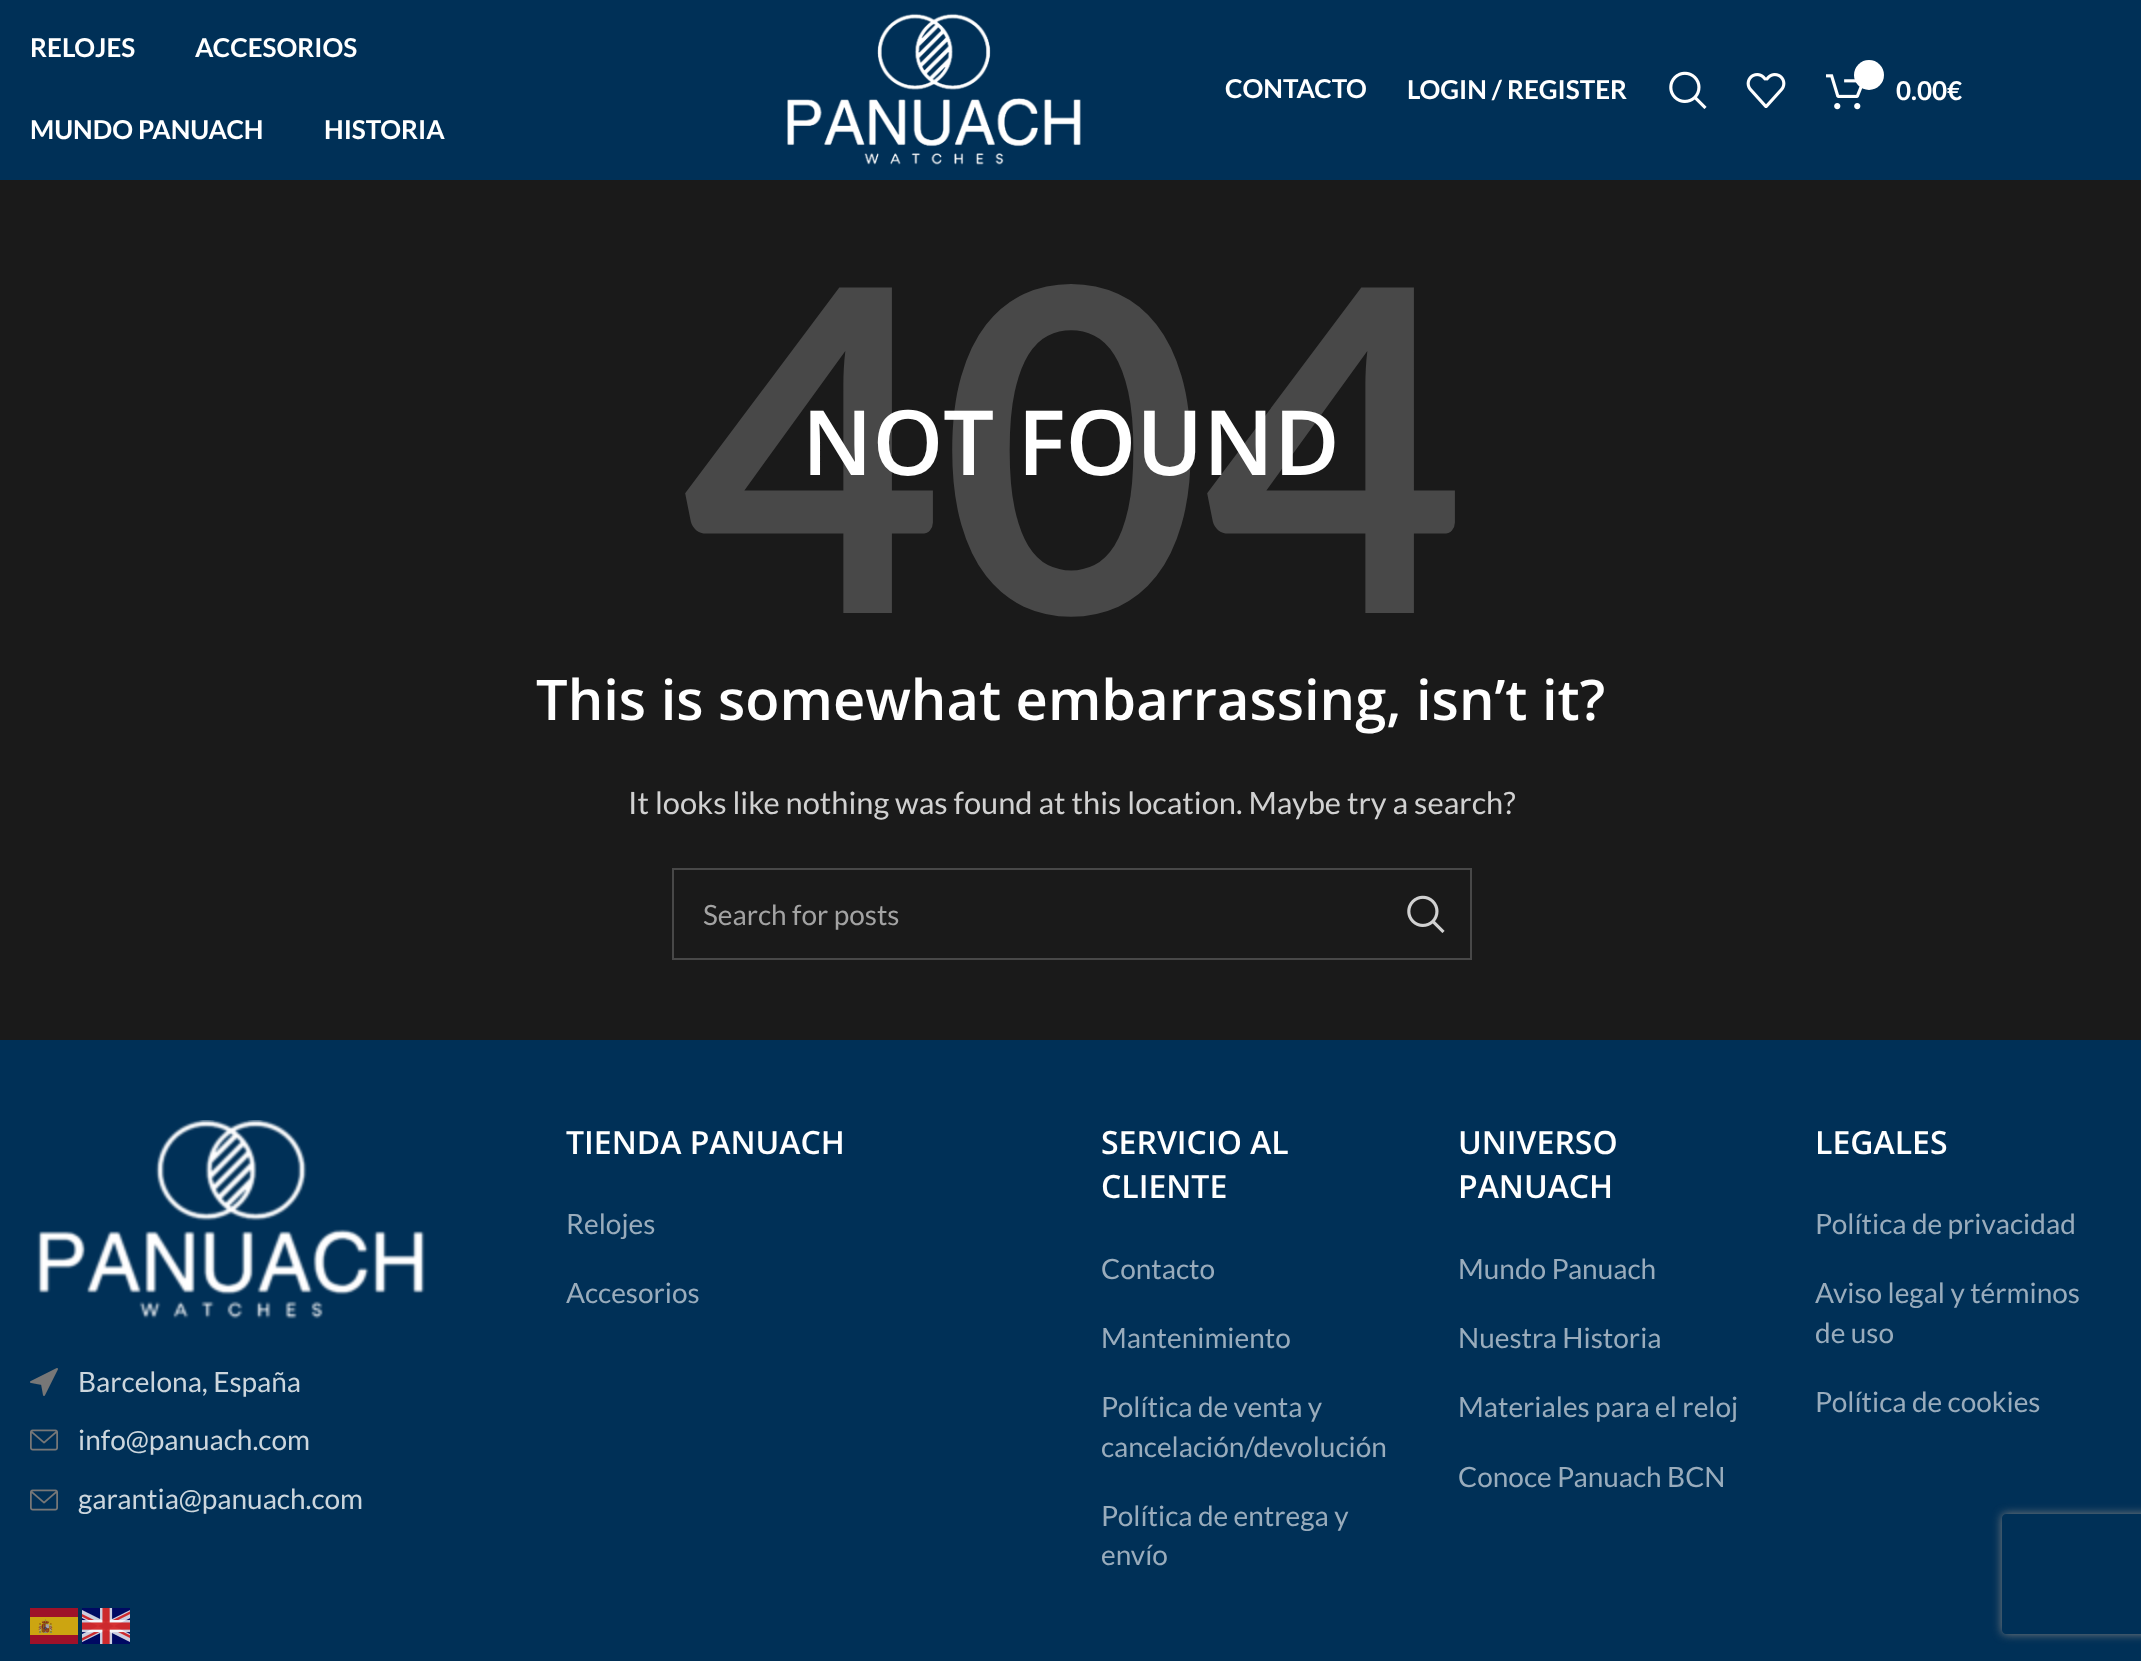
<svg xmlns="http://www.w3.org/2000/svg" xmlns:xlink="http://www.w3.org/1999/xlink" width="2141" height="1661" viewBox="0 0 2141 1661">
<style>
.cls-1{font:bold 26px Lato;fill:#ffffff}
.cls-2{font:bold 450px Lato;fill:#484848}
.cls-3{font:600 90px Open Sans;fill:#ffffff}
.cls-4{font:600 56px Open Sans;fill:#ffffff}
.cls-5{font:30.8px Lato;fill:#d1d1d1}
.cls-6{font:28px Lato;fill:#a3a3a3}
.cls-7{font:600 32px Open Sans;fill:#ffffff}
.cls-8{font:28px Lato;fill:#99acbc}
.cls-9{font:28px Lato;fill:#ccd6dd}
</style>
<defs>
<clipPath id="clip1"><path d="M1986 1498H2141V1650H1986ZM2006 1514H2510C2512 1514 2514 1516 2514 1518V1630C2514 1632 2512 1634 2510 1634H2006C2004 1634 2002 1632 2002 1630V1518C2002 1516 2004 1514 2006 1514Z" clip-rule="evenodd"/></clipPath>
</defs>
<rect width="100%" height="100%" fill="#1a1a1a"/>
<rect fill="#003057" x="0" y="0" width="2141" height="180"/>
<image xlink:href="image0.png" x="787" y="13" width="294" height="152"/>
<image xlink:href="image1.png" x="1669" y="71" width="38" height="38"/>
<image xlink:href="image2.png" x="1746" y="73" width="40" height="35"/>
<image xlink:href="image3.png" x="1826" y="74" width="37" height="36"/>
<circle fill="#ffffff" cx="1869" cy="75" r="15"/>
<rect fill="none" stroke="#484848" stroke-width="2" x="673" y="869" width="798" height="90"/>
<image xlink:href="image4.png" x="1407" y="895" width="38" height="38"/>
<rect fill="#003057" x="0" y="1040" width="2141" height="621"/>
<image xlink:href="image5.png" x="37" y="1120" width="388" height="199"/>
<image xlink:href="image6.png" x="30" y="1368" width="28" height="28"/>
<image xlink:href="image7.png" x="30" y="1429" width="28" height="22"/>
<image xlink:href="image7.png" x="30" y="1489" width="28" height="22"/>
<image xlink:href="image8.png" x="30" y="1608" width="48" height="36"/>
<image xlink:href="image9.png" x="82" y="1608" width="48" height="36"/>
<g clip-path="url(#clip1)">
<rect fill="#808080" filter="blur(5px)" x="2002" y="1514" width="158" height="120" rx="4"/>
</g>
<text class="cls-1" x="30" y="57">RELOJES</text>
<text class="cls-1" x="195" y="57">ACCESORIOS</text>
<text class="cls-1" x="30" y="139">MUNDO PANUACH</text>
<text class="cls-1" x="324" y="139">HISTORIA</text>
<text class="cls-1" x="1225" y="98">CONTACTO</text>
<text class="cls-1" x="1407" y="99">LOGIN / REGISTER</text>
<text class="cls-1" x="1896" y="100">0.00€</text>
<text class="cls-2" x="680" y="613">404</text>
<text class="cls-3" x="802" y="475">NOT FOUND</text>
<text class="cls-4" x="536" y="720">This is somewhat embarrassing, isn’t it?</text>
<text class="cls-5" x="628" y="814">It looks like nothing was found at this location. Maybe try a search?</text>
<text class="cls-6" x="703" y="925">Search for posts</text>
<text class="cls-7" x="566" y="1154">TIENDA PANUACH</text>
<text class="cls-8" x="566" y="1234">Relojes</text>
<text class="cls-8" x="566" y="1303">Accesorios</text>
<text class="cls-7"><tspan x="1101" y="1154">SERVICIO AL</tspan><tspan x="1101" y="1198">CLIENTE</tspan></text>
<text class="cls-8" x="1101" y="1279">Contacto</text>
<text class="cls-8" x="1101" y="1348">Mantenimiento</text>
<text class="cls-8"><tspan x="1101" y="1417">Política de venta y</tspan><tspan x="1101" y="1457">cancelación/devolución</tspan></text>
<text class="cls-8"><tspan x="1101" y="1526">Política de entrega y</tspan><tspan x="1101" y="1565">envío</tspan></text>
<text class="cls-7"><tspan x="1458" y="1154">UNIVERSO</tspan><tspan x="1458" y="1198">PANUACH</tspan></text>
<text class="cls-8" x="1458" y="1279">Mundo Panuach</text>
<text class="cls-8" x="1458" y="1348">Nuestra Historia</text>
<text class="cls-8" x="1458" y="1417">Materiales para el reloj</text>
<text class="cls-8" x="1458" y="1487">Conoce Panuach BCN</text>
<text class="cls-7" x="1815" y="1154">LEGALES</text>
<text class="cls-8" x="1815" y="1234">Política de privacidad</text>
<text class="cls-8"><tspan x="1815" y="1303">Aviso legal y términos</tspan><tspan x="1815" y="1343">de uso</tspan></text>
<text class="cls-8" x="1815" y="1412">Política de cookies</text>
<text class="cls-9" x="78" y="1392">Barcelona, España</text>
<text class="cls-9" x="78" y="1450">info@panuach.com</text>
<text class="cls-9" x="78" y="1509">garantia@panuach.com</text>
</svg>
